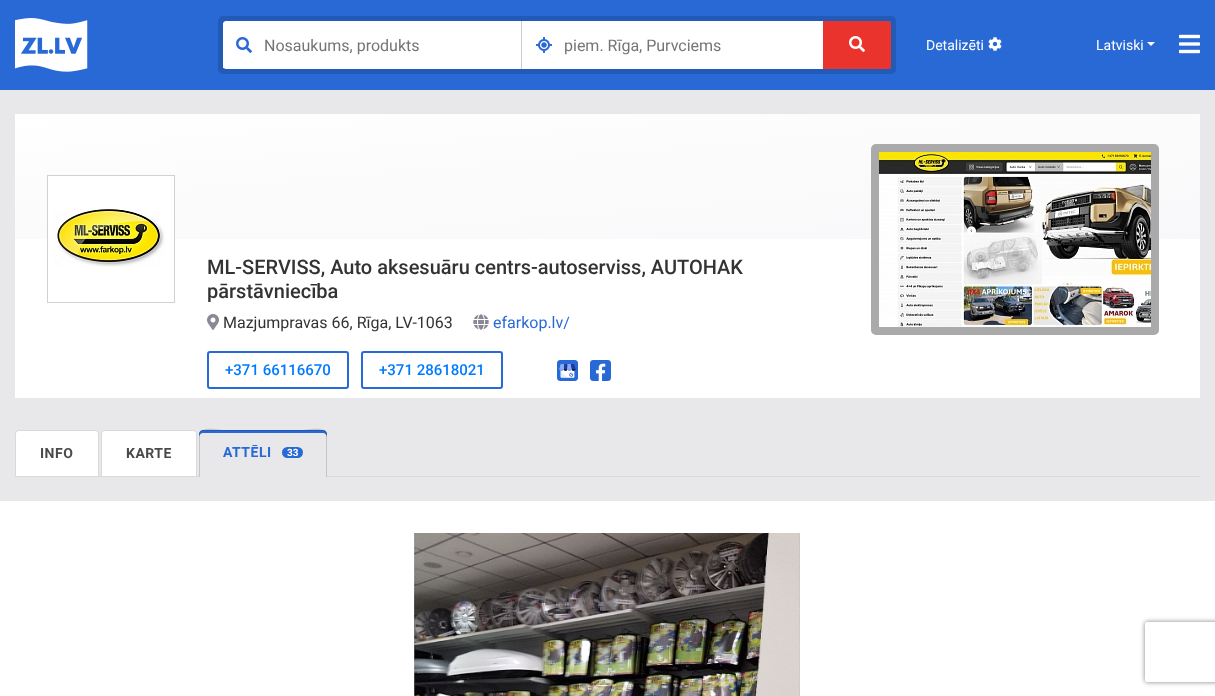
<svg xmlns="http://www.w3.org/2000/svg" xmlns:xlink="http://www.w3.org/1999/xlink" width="1215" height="696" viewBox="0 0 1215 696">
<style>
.cls-1{font:16px Roboto;fill:#757575}
.cls-2{font:14px Roboto;fill:#ffffff}
.cls-3{font:500 20px Roboto;fill:#333333}
.cls-4{font:16px Roboto;fill:#333333}
.cls-5{font:16px Roboto;fill:#2869d6}
.cls-6{font:500 15px Roboto;fill:#007bff}
.cls-7{font:bold 14px Roboto;letter-spacing:0.5px;fill:#4a4a4a}
.cls-8{font:bold 14px Roboto;letter-spacing:0.5px;fill:#2869d6}
.cls-9{font:bold 10px Roboto;fill:#ffffff}
</style>
<defs>
<linearGradient id="g1" gradientUnits="userSpaceOnUse" x1="598" y1="63" x2="617" y2="290"><stop offset="0" stop-color="#ffffff"/><stop offset="1" stop-color="#f8f7f9"/></linearGradient>
<clipPath id="clip1"><path d="M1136 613H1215V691H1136ZM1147 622H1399C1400 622 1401 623 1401 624V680C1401 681 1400 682 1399 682H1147C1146 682 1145 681 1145 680V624C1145 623 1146 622 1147 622Z" clip-rule="evenodd"/></clipPath>
</defs>
<rect width="100%" height="100%" fill="#e8e7ea"/>
<rect fill="#2869d6" x="0" y="0" width="1215" height="90"/>
<image xlink:href="image0.png" x="15" y="18" width="73" height="54"/>
<rect fill="none" stroke="#225ab8" stroke-width="5" x="220.5" y="18.5" width="673" height="53" rx="2.5"/>
<path fill="#ffffff" d="M226 21H523V69H226C224.5 69 223 67.5 223 66V24C223 22.5 224.5 21 226 21Z"/>
<image xlink:href="image1.png" x="236" y="37" width="16" height="16"/>
<rect fill="#cccccc" x="521" y="21" width="1" height="48"/>
<rect fill="#ffffff" x="223" y="23" width="1" height="45"/>
<rect fill="#ffffff" x="523" y="21" width="300" height="48"/>
<image xlink:href="image2.png" x="536" y="37" width="16" height="16"/>
<path fill="#ea332d" d="M823 21H888C889.5 21 891 22.5 891 24V66C891 67.5 889.5 69 888 69H823Z"/>
<image xlink:href="image3.png" x="849" y="36" width="16" height="16"/>
<image xlink:href="image4.png" x="988" y="37" width="14" height="14"/>
<path fill="#ffffff" d="M1147 42H1155L1151 46Z"/>
<image xlink:href="image5.png" x="1179" y="34" width="21" height="20"/>
<rect fill="#ffffff" x="15" y="114" width="1185" height="284"/>
<path fill="url(#g1)" d="M18 114H1197C1198.5 114 1200 115.5 1200 117V239H15V117C15 115.5 16.5 114 18 114Z"/>
<rect fill="#ffffff" x="48" y="176" width="126" height="63"/>
<rect fill="none" stroke="#d1d1d1" x="47.5" y="175.5" width="127" height="127"/>
<image xlink:href="image6.png" x="53" y="209" width="112" height="58"/>
<rect fill="none" stroke="#aaaaaa" stroke-width="8" x="875" y="148" width="280" height="183" rx="1"/>
<image xlink:href="image7.png" x="879" y="152" width="272" height="175"/>
<image xlink:href="image8.png" x="207" y="314" width="12" height="16"/>
<image xlink:href="image9.png" x="473" y="314" width="16" height="16"/>
<rect fill="none" stroke="#2869d6" stroke-width="2" x="208" y="352" width="140" height="36" rx="2"/>
<rect fill="none" stroke="#2869d6" stroke-width="2" x="362" y="352" width="140" height="36" rx="2"/>
<image xlink:href="image10.png" x="557" y="360" width="21" height="21"/>
<image xlink:href="image11.png" x="590" y="360" width="21" height="21"/>
<rect fill="#d9d9d9" x="99" y="476" width="1101" height="1"/>
<path fill="#ffffff" d="M19 430H95C97 430 99 432 99 434V477H15V434C15 432 17 430 19 430Z"/>
<path fill="none" stroke="#000000" stroke-opacity="0.15" d="M19 430.5H95C97 430.5 98.5 432 98.5 434V476.5H15.5V434C15.5 432 17 430.5 19 430.5Z"/>
<path fill="#ffffff" d="M105 430H193C195 430 197 432 197 434V477H101V434C101 432 103 430 105 430Z"/>
<path fill="none" stroke="#000000" stroke-opacity="0.15" d="M105 430.5H193C195 430.5 196.5 432 196.5 434V476.5H101.5V434C101.5 432 103 430.5 105 430.5Z"/>
<path fill="#e8e7ea" d="M203 430H323C325 430 327 432 327 434V477H199V434C199 432 201 430 203 430Z"/>
<path fill="#2869d6" d="M203 433H323C325 433 327 435 327 437V434C327 432 325 430 323 430H203C201 430 199 432 199 434V437C199 435 201 433 203 433Z"/>
<path fill="#000000" fill-opacity="0.15" d="M203 431H323C325 431 327 433 327 435C327 425 305 430 303 430H223C221 430 199 425 199 435C199 433 201 431 203 431Z"/>
<path fill="#000000" fill-opacity="0.15" d="M203 430C201 430 199 432 199 434V477H200V434C200 432 202 430 204 430Z"/>
<path fill="#000000" fill-opacity="0.15" d="M326 477H327V434C327 432 325 430 323 430H322C324 430 326 432 326 434Z"/>
<rect fill="#2869d6" x="282" y="447" width="21" height="11" rx="5.5"/>
<rect fill="#ffffff" x="0" y="501" width="1215" height="195"/>
<image xlink:href="image12.png" x="414" y="533" width="386" height="163"/>
<g clip-path="url(#clip1)">
<rect fill="#808080" filter="blur(2.5px)" x="1145" y="622" width="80" height="60" rx="2"/>
</g>
<text class="cls-1" x="264" y="51">Nosaukums, produkts</text>
<text class="cls-1" x="564" y="51">piem. Rīga, Purvciems</text>
<text class="cls-2" x="926" y="50">Detalizēti</text>
<text class="cls-2" x="1096" y="50">Latviski</text>
<text class="cls-3"><tspan x="207" y="274">ML-SERVISS, Auto aksesuāru centrs-autoserviss, AUTOHAK</tspan><tspan x="207" y="298">pārstāvniecība</tspan></text>
<text class="cls-4" x="223" y="328">Mazjumpravas 66, Rīga, LV-1063</text>
<text class="cls-5" x="493" y="328">efarkop.lv/</text>
<text class="cls-6" x="225" y="375">+371 66116670</text>
<text class="cls-6" x="379" y="375">+371 28618021</text>
<text class="cls-7" x="40" y="458">INFO</text>
<text class="cls-7" x="126" y="458">KARTE</text>
<text class="cls-8" x="223" y="457">ATTĒLI</text>
<text class="cls-9" x="287" y="456">33</text>
</svg>
